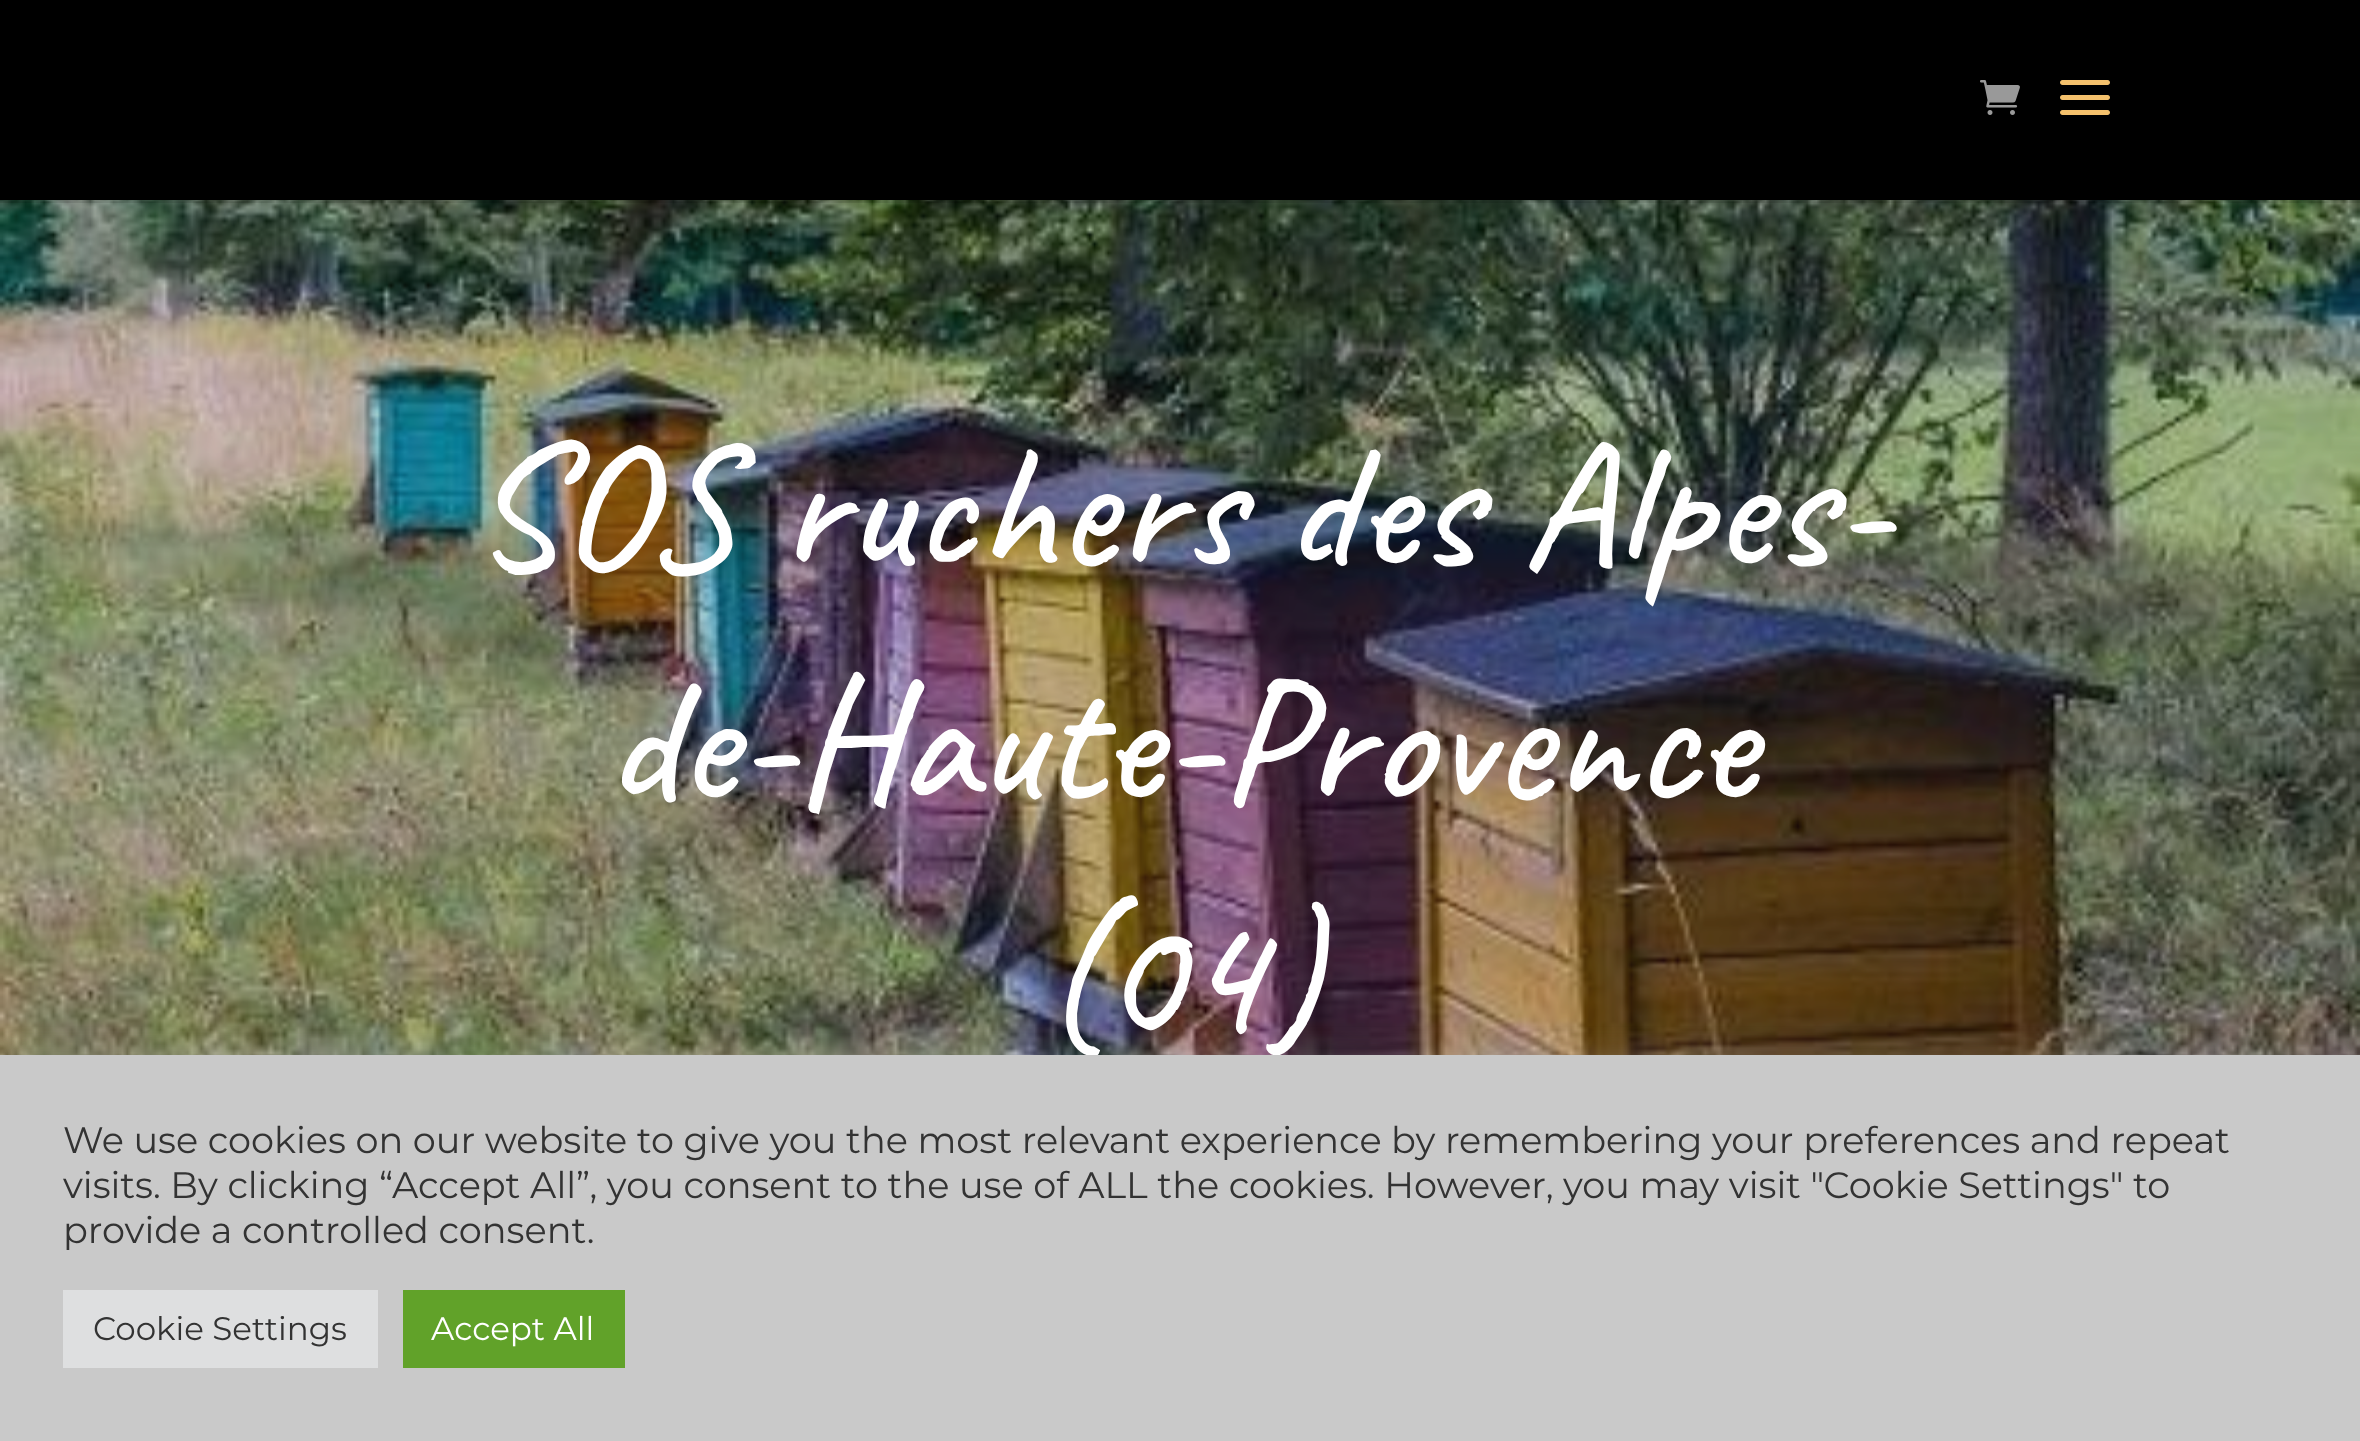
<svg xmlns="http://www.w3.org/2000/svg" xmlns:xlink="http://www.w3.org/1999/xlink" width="2360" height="1441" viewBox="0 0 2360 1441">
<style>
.cls-1{font:500 180px Caveat;fill:#ffffff}
.cls-2{font:100 36.67px Montserrat;fill:#333333}
.cls-3{font:100 32.5px Montserrat;fill:#333333}
.cls-4{font:100 32.5px Montserrat;fill:#ffffff}
</style>
<rect width="100%" height="100%" fill="#ffffff"/>
<image xlink:href="image2.png" x="0" y="200" width="2360" height="855"/>
<rect fill="#000000" fill-opacity="0.1" x="0" y="200" width="2360" height="3"/>
<rect fill="#000000" x="0" y="0" width="2360" height="200"/>
<image xlink:href="image0.png" x="1980" y="80" width="40" height="35"/>
<image xlink:href="image1.png" x="2060" y="80" width="50" height="35"/>
<rect fill="#acabab" fill-opacity="0.3" filter="blur(12.5px)" x="0" y="1053" width="2360" height="387"/>
<text class="cls-1" x="469" y="565">SOS ruchers des Alpes-</text>
<text class="cls-1" x="605" y="799">de-Haute-Provence</text>
<text class="cls-1" x="1040" y="1033">(04)</text>
<rect fill="#c9c9c9" x="0" y="1055" width="2360" height="386"/>
<text class="cls-2"><tspan x="63" y="1153">We use cookies on our website to give you the most relevant experience by remembering your preferences and repeat</tspan><tspan x="63" y="1198">visits. By clicking “Accept All”, you consent to the use of ALL the cookies. However, you may visit "Cookie Settings" to</tspan><tspan x="63" y="1243">provide a controlled consent.</tspan></text>
<rect fill="#dedfe0" x="63" y="1290" width="315" height="78"/>
<text class="cls-3" x="93" y="1340">Cookie Settings</text>
<rect fill="#61a229" x="403" y="1290" width="222" height="78"/>
<text class="cls-4" x="431" y="1340">Accept All</text>
</svg>
